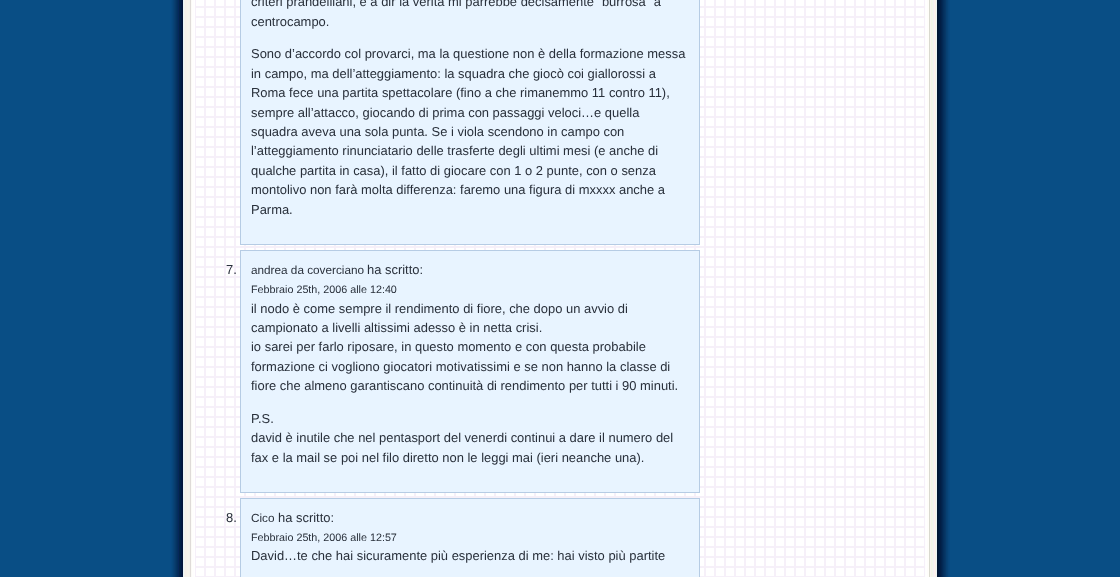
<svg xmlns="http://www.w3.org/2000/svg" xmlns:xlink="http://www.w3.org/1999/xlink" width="1120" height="577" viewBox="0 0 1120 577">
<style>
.cls-1{font:12.95px Liberation Sans;fill:#29303b}
.cls-2{font:11.75px Liberation Sans;fill:#29303b}
.cls-3{font:10.75px Liberation Sans;fill:#29303b}
</style>
<rect width="100%" height="100%" fill="#094e85"/>
<image xlink:href="image0.png" x="170" y="0" width="780" height="577"/>
<image xlink:href="image1.png" x="195" y="0" width="730" height="577"/>
<rect fill="#e8f4ff" stroke="#b6cce4" x="240.5" y="-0.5" width="459" height="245"/>
<rect fill="#e8f4ff" stroke="#b6cce4" x="240.5" y="250.5" width="459" height="242"/>
<rect fill="#e8f4ff" stroke="#b6cce4" x="240.5" y="498.5" width="459" height="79"/>
<text class="cls-1"><tspan x="251" y="6">criteri prandelliani, e a dir la verità mi parrebbe decisamente “burrosa” a</tspan><tspan x="251" y="26">centrocampo.</tspan></text>
<text class="cls-1"><tspan x="251" y="58">Sono d’accordo col provarci, ma la questione non è della formazione messa</tspan><tspan x="251" y="78">in campo, ma dell’atteggiamento: la squadra che giocò coi giallorossi a</tspan><tspan x="251" y="97">Roma fece una partita spettacolare (fino a che rimanemmo 11 contro 11),</tspan><tspan x="251" y="117">sempre all’attacco, giocando di prima con passaggi veloci…e quella</tspan><tspan x="251" y="136">squadra aveva una sola punta. Se i viola scendono in campo con</tspan><tspan x="251" y="155">l’atteggiamento rinunciatario delle trasferte degli ultimi mesi (e anche di</tspan><tspan x="251" y="175">qualche partita in casa), il fatto di giocare con 1 o 2 punte, con o senza</tspan><tspan x="251" y="194">montolivo non farà molta differenza: faremo una figura di mxxxx anche a</tspan><tspan x="251" y="214">Parma.</tspan></text>
<text class="cls-1" x="226" y="274">7.</text>
<text class="cls-2" x="251" y="274">andrea da coverciano</text>
<text class="cls-1" x="367" y="274">ha scritto:</text>
<text class="cls-3" x="251" y="293">Febbraio 25th, 2006 alle 12:40</text>
<text class="cls-1"><tspan x="251" y="313">il nodo è come sempre il rendimento di fiore, che dopo un avvio di</tspan><tspan x="251" y="332">campionato a livelli altissimi adesso è in netta crisi.</tspan><tspan x="251" y="351">io sarei per farlo riposare, in questo momento e con questa probabile</tspan><tspan x="251" y="371">formazione ci vogliono giocatori motivatissimi e se non hanno la classe di</tspan><tspan x="251" y="390">fiore che almeno garantiscano continuità di rendimento per tutti i 90 minuti.</tspan></text>
<text class="cls-1"><tspan x="251" y="423">P.S.</tspan><tspan x="251" y="442">david è inutile che nel pentasport del venerdi continui a dare il numero del</tspan><tspan x="251" y="462">fax e la mail se poi nel filo diretto non le leggi mai (ieri neanche una).</tspan></text>
<text class="cls-1" x="226" y="522">8.</text>
<text class="cls-2" x="251" y="522">Cico</text>
<text class="cls-1" x="278" y="522">ha scritto:</text>
<text class="cls-3" x="251" y="541">Febbraio 25th, 2006 alle 12:57</text>
<text class="cls-1" x="251" y="560">David…te che hai sicuramente più esperienza di me: hai visto più partite</text>
</svg>
